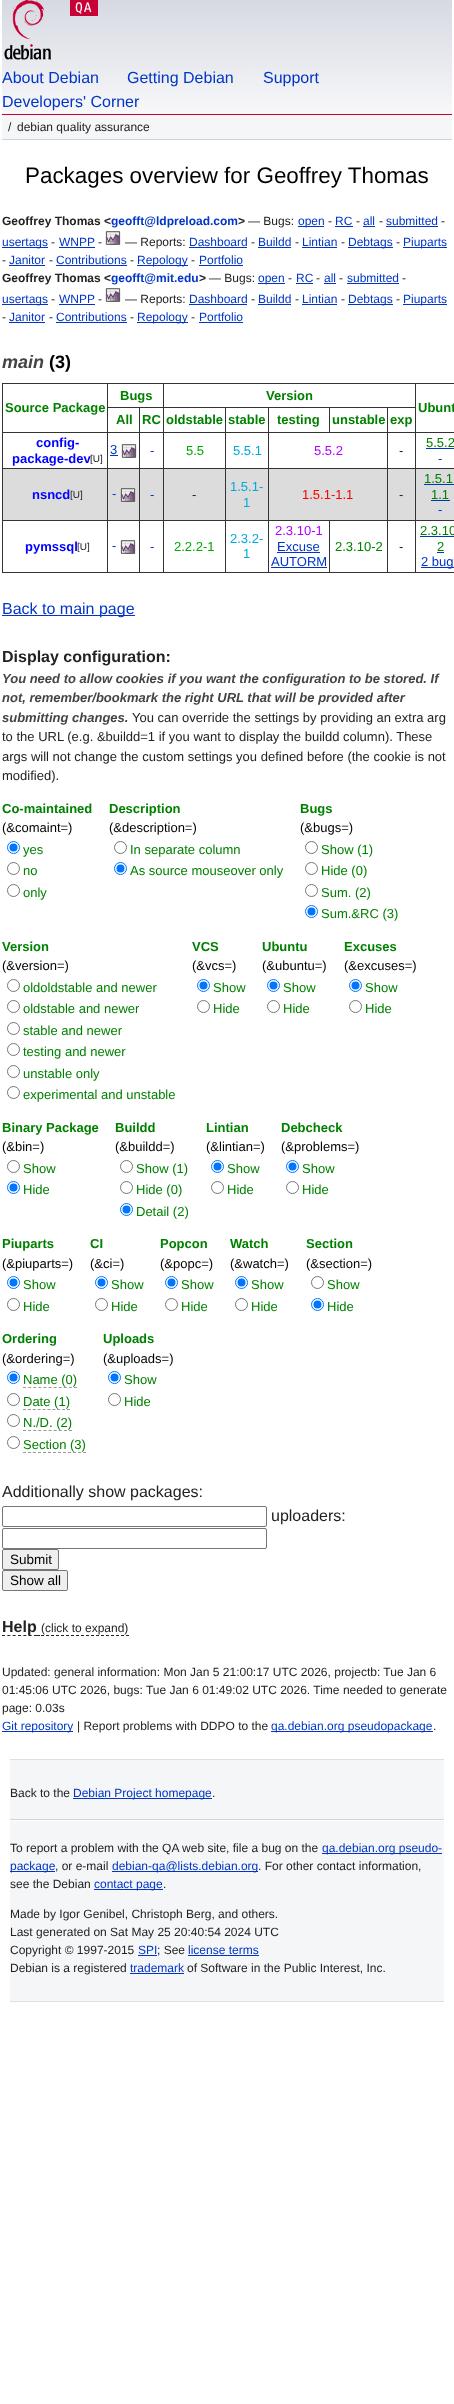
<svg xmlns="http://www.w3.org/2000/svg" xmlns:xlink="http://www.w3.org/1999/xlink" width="454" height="2404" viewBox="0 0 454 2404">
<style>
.cls-1{font:13px DejaVu Sans Mono;letter-spacing:1px;fill:#ffffff}
.cls-2{font:16px Liberation Sans;fill:#0035c7}
.cls-3{font:12px Liberation Sans;fill:#222222}
.cls-4{font:22.4px Liberation Sans;fill:#000000}
.cls-5{font:bold 12px Liberation Sans;fill:#222222}
.cls-6{font:bold 12px Liberation Sans;fill:#0035c7}
.cls-7{font:12px Liberation Sans;fill:#0035c7}
.cls-8{font:italic bold 18px Liberation Sans;fill:#444444}
.cls-9{font:bold 18px Liberation Sans;fill:#000000}
.cls-10{font:bold 13px Liberation Sans;fill:#008000}
.cls-11{font:bold 13px Liberation Sans;fill:#0000ff}
.cls-12{font:10px Liberation Sans;fill:#222222}
.cls-13{font:13px Liberation Sans;fill:#0035c7}
.cls-14{font:13px Liberation Sans;fill:#00aa00}
.cls-15{font:13px Liberation Sans;fill:#00aadd}
.cls-16{font:13px Liberation Sans;fill:#b400ff}
.cls-17{font:13px Liberation Sans;fill:#222222}
.cls-18{font:13px Liberation Sans;fill:#008000}
.cls-19{font:13px Liberation Sans;fill:#ff0000}
.cls-20{font:bold 16px Liberation Sans;fill:#222222}
.cls-21{font:italic bold 13px Liberation Sans;fill:#444444}
.cls-22{font:13px Liberation Sans;fill:#000000}
.cls-23{font:16px Liberation Sans;fill:#222222}
.cls-24{font:13.5px Liberation Sans;fill:#000000}
</style>
<defs>
<linearGradient id="g1" gradientUnits="userSpaceOnUse" x1="227" y1="0" x2="227" y2="140"><stop offset="0" stop-color="#d7d9e2"/><stop offset="1" stop-color="#ffffff"/></linearGradient>
</defs>
<rect width="100%" height="100%" fill="#ffffff"/>
<rect fill="url(#g1)" x="2" y="0" width="450" height="114"/>
<image xlink:href="image0.png" x="4" y="0" width="47" height="60"/>
<rect fill="#c70036" x="70" y="0" width="28" height="16"/>
<rect fill="#c70036" x="2" y="114" width="450" height="1"/>
<rect fill="#f5f6f7" x="2" y="115" width="450" height="24"/>
<rect fill="#d2d3d7" x="2" y="139" width="450" height="1"/>
<rect fill="#0035c7" x="298" y="226" width="26" height="1"/>
<rect fill="#0035c7" x="335" y="226" width="18" height="1"/>
<rect fill="#0035c7" x="363" y="226" width="12" height="1"/>
<rect fill="#0035c7" x="386" y="226" width="52" height="1"/>
<rect fill="#0035c7" x="2" y="247" width="46" height="1"/>
<rect fill="#0035c7" x="59" y="247" width="36" height="1"/>
<image xlink:href="image1.png" x="105" y="231" width="16" height="14"/>
<rect fill="#0035c7" x="189" y="247" width="58" height="1"/>
<rect fill="#0035c7" x="258" y="247" width="33" height="1"/>
<rect fill="#0035c7" x="302" y="247" width="35" height="1"/>
<rect fill="#0035c7" x="348" y="247" width="45" height="1"/>
<rect fill="#0035c7" x="403" y="247" width="44" height="1"/>
<rect fill="#0035c7" x="9" y="265" width="36" height="1"/>
<rect fill="#0035c7" x="56" y="265" width="71" height="1"/>
<rect fill="#0035c7" x="137" y="265" width="51" height="1"/>
<rect fill="#0035c7" x="199" y="265" width="44" height="1"/>
<rect fill="#0035c7" x="258" y="283" width="27" height="1"/>
<rect fill="#0035c7" x="296" y="283" width="17" height="1"/>
<rect fill="#0035c7" x="324" y="283" width="12" height="1"/>
<rect fill="#0035c7" x="347" y="283" width="52" height="1"/>
<rect fill="#0035c7" x="2" y="304" width="46" height="1"/>
<rect fill="#0035c7" x="59" y="304" width="36" height="1"/>
<image xlink:href="image1.png" x="105" y="288" width="16" height="14"/>
<rect fill="#0035c7" x="189" y="304" width="58" height="1"/>
<rect fill="#0035c7" x="258" y="304" width="33" height="1"/>
<rect fill="#0035c7" x="302" y="304" width="35" height="1"/>
<rect fill="#0035c7" x="348" y="304" width="45" height="1"/>
<rect fill="#0035c7" x="403" y="304" width="44" height="1"/>
<rect fill="#0035c7" x="9" y="322" width="36" height="1"/>
<rect fill="#0035c7" x="56" y="322" width="71" height="1"/>
<rect fill="#0035c7" x="137" y="322" width="51" height="1"/>
<rect fill="#0035c7" x="199" y="322" width="44" height="1"/>
<rect fill="#333333" x="2" y="383" width="452" height="1"/>
<rect fill="#333333" x="2" y="383" width="1" height="190"/>
<rect fill="#333333" x="163" y="384" width="1" height="49"/>
<rect fill="#333333" x="108" y="407" width="56" height="1"/>
<rect fill="#333333" x="415" y="384" width="1" height="49"/>
<rect fill="#333333" x="164" y="407" width="252" height="1"/>
<rect fill="#dcdcdc" x="3" y="469" width="451" height="51"/>
<rect fill="#333333" x="107" y="384" width="1" height="189"/>
<rect fill="#333333" x="3" y="432" width="105" height="1"/>
<rect fill="#333333" x="416" y="432" width="38" height="1"/>
<rect fill="#333333" x="139" y="408" width="1" height="25"/>
<rect fill="#333333" x="108" y="432" width="56" height="1"/>
<rect fill="#333333" x="225" y="408" width="1" height="25"/>
<rect fill="#333333" x="164" y="432" width="62" height="1"/>
<rect fill="#333333" x="268" y="408" width="1" height="25"/>
<rect fill="#333333" x="226" y="432" width="43" height="1"/>
<rect fill="#333333" x="329" y="408" width="1" height="25"/>
<rect fill="#333333" x="269" y="432" width="61" height="1"/>
<rect fill="#333333" x="387" y="408" width="1" height="25"/>
<rect fill="#333333" x="330" y="432" width="86" height="1"/>
<rect fill="#333333" x="7" y="468" width="101" height="1"/>
<rect fill="#333333" x="139" y="433" width="1" height="36"/>
<rect fill="#333333" x="108" y="468" width="32" height="1"/>
<rect fill="#0035c7" x="110" y="455" width="8" height="1"/>
<image xlink:href="image1.png" x="121" y="444" width="16" height="14"/>
<rect fill="#333333" x="163" y="433" width="1" height="36"/>
<rect fill="#333333" x="140" y="468" width="24" height="1"/>
<rect fill="#333333" x="225" y="433" width="1" height="36"/>
<rect fill="#333333" x="164" y="468" width="62" height="1"/>
<rect fill="#333333" x="268" y="433" width="1" height="36"/>
<rect fill="#333333" x="226" y="468" width="43" height="1"/>
<rect fill="#333333" x="387" y="433" width="1" height="36"/>
<rect fill="#333333" x="269" y="468" width="119" height="1"/>
<rect fill="#333333" x="415" y="433" width="1" height="36"/>
<rect fill="#333333" x="388" y="468" width="66" height="1"/>
<rect fill="#0035c7" x="426" y="448" width="28" height="1"/>
<rect fill="#333333" x="3" y="468" width="4" height="1"/>
<rect fill="#333333" x="7" y="520" width="101" height="1"/>
<rect fill="#333333" x="139" y="469" width="1" height="104"/>
<rect fill="#333333" x="108" y="520" width="32" height="1"/>
<image xlink:href="image2.png" x="120" y="488" width="16" height="14"/>
<rect fill="#333333" x="163" y="469" width="1" height="104"/>
<rect fill="#333333" x="140" y="520" width="24" height="1"/>
<rect fill="#333333" x="225" y="469" width="1" height="104"/>
<rect fill="#333333" x="164" y="520" width="62" height="1"/>
<rect fill="#333333" x="268" y="469" width="1" height="104"/>
<rect fill="#333333" x="226" y="520" width="43" height="1"/>
<rect fill="#333333" x="387" y="469" width="1" height="104"/>
<rect fill="#333333" x="269" y="520" width="119" height="1"/>
<rect fill="#333333" x="415" y="469" width="1" height="104"/>
<rect fill="#333333" x="388" y="520" width="66" height="1"/>
<rect fill="#0035c7" x="424" y="484" width="30" height="1"/>
<rect fill="#0035c7" x="431" y="500" width="19" height="1"/>
<rect fill="#333333" x="3" y="520" width="4" height="1"/>
<rect fill="#333333" x="7" y="572" width="101" height="1"/>
<rect fill="#333333" x="108" y="572" width="161" height="1"/>
<image xlink:href="image1.png" x="120" y="540" width="16" height="14"/>
<rect fill="#333333" x="329" y="521" width="1" height="52"/>
<rect fill="#333333" x="269" y="572" width="185" height="1"/>
<rect fill="#0035c7" x="277" y="552" width="43" height="1"/>
<rect fill="#0035c7" x="271" y="567" width="56" height="1"/>
<rect fill="#0035c7" x="420" y="536" width="34" height="1"/>
<rect fill="#0035c7" x="437" y="552" width="7" height="1"/>
<rect fill="#0035c7" x="421" y="567" width="33" height="1"/>
<rect fill="#333333" x="3" y="572" width="4" height="1"/>
<rect fill="#0035c7" x="2" y="615" width="133" height="1"/>
<circle fill="none" stroke="#0075ff" cx="13.5" cy="847.5" r="6"/>
<circle fill="#0075ff" cx="13.5" cy="847.5" r="4"/>
<circle fill="none" stroke="#767676" cx="13.5" cy="868.5" r="6"/>
<circle fill="none" stroke="#767676" cx="13.5" cy="890.5" r="6"/>
<circle fill="none" stroke="#767676" cx="120.5" cy="847.5" r="6"/>
<circle fill="none" stroke="#0075ff" cx="120.5" cy="868.5" r="6"/>
<circle fill="#0075ff" cx="120.5" cy="868.5" r="4"/>
<circle fill="none" stroke="#767676" cx="311.5" cy="847.5" r="6"/>
<circle fill="none" stroke="#767676" cx="311.5" cy="868.5" r="6"/>
<circle fill="none" stroke="#767676" cx="311.5" cy="890.5" r="6"/>
<circle fill="none" stroke="#0075ff" cx="311.5" cy="911.5" r="6"/>
<circle fill="#0075ff" cx="311.5" cy="911.5" r="4"/>
<circle fill="none" stroke="#767676" cx="13.5" cy="985.5" r="6"/>
<circle fill="none" stroke="#767676" cx="13.5" cy="1006.5" r="6"/>
<circle fill="none" stroke="#767676" cx="13.5" cy="1028.5" r="6"/>
<circle fill="none" stroke="#767676" cx="13.5" cy="1049.5" r="6"/>
<circle fill="none" stroke="#767676" cx="13.5" cy="1071.5" r="6"/>
<circle fill="none" stroke="#767676" cx="13.5" cy="1092.5" r="6"/>
<circle fill="none" stroke="#0075ff" cx="203.5" cy="985.5" r="6"/>
<circle fill="#0075ff" cx="203.5" cy="985.5" r="4"/>
<circle fill="none" stroke="#767676" cx="203.5" cy="1006.5" r="6"/>
<circle fill="none" stroke="#0075ff" cx="273.5" cy="985.5" r="6"/>
<circle fill="#0075ff" cx="273.5" cy="985.5" r="4"/>
<circle fill="none" stroke="#767676" cx="273.5" cy="1006.5" r="6"/>
<circle fill="none" stroke="#0075ff" cx="355.5" cy="985.5" r="6"/>
<circle fill="#0075ff" cx="355.5" cy="985.5" r="4"/>
<circle fill="none" stroke="#767676" cx="355.5" cy="1006.5" r="6"/>
<circle fill="none" stroke="#767676" cx="13.5" cy="1166.5" r="6"/>
<circle fill="none" stroke="#0075ff" cx="13.5" cy="1187.5" r="6"/>
<circle fill="#0075ff" cx="13.5" cy="1187.5" r="4"/>
<circle fill="none" stroke="#767676" cx="126.5" cy="1166.5" r="6"/>
<circle fill="none" stroke="#767676" cx="126.5" cy="1187.5" r="6"/>
<circle fill="none" stroke="#0075ff" cx="126.5" cy="1209.5" r="6"/>
<circle fill="#0075ff" cx="126.5" cy="1209.5" r="4"/>
<circle fill="none" stroke="#0075ff" cx="217.5" cy="1166.5" r="6"/>
<circle fill="#0075ff" cx="217.5" cy="1166.5" r="4"/>
<circle fill="none" stroke="#767676" cx="217.5" cy="1187.5" r="6"/>
<circle fill="none" stroke="#0075ff" cx="292.5" cy="1166.5" r="6"/>
<circle fill="#0075ff" cx="292.5" cy="1166.5" r="4"/>
<circle fill="none" stroke="#767676" cx="292.5" cy="1187.5" r="6"/>
<circle fill="none" stroke="#0075ff" cx="13.5" cy="1282.5" r="6"/>
<circle fill="#0075ff" cx="13.5" cy="1282.5" r="4"/>
<circle fill="none" stroke="#767676" cx="13.5" cy="1304.5" r="6"/>
<circle fill="none" stroke="#0075ff" cx="101.5" cy="1282.5" r="6"/>
<circle fill="#0075ff" cx="101.5" cy="1282.5" r="4"/>
<circle fill="none" stroke="#767676" cx="101.5" cy="1304.5" r="6"/>
<circle fill="none" stroke="#0075ff" cx="171.5" cy="1282.5" r="6"/>
<circle fill="#0075ff" cx="171.5" cy="1282.5" r="4"/>
<circle fill="none" stroke="#767676" cx="171.5" cy="1304.5" r="6"/>
<circle fill="none" stroke="#0075ff" cx="241.5" cy="1282.5" r="6"/>
<circle fill="#0075ff" cx="241.5" cy="1282.5" r="4"/>
<circle fill="none" stroke="#767676" cx="241.5" cy="1304.5" r="6"/>
<circle fill="none" stroke="#767676" cx="317.5" cy="1282.5" r="6"/>
<circle fill="none" stroke="#0075ff" cx="317.5" cy="1304.5" r="6"/>
<circle fill="#0075ff" cx="317.5" cy="1304.5" r="4"/>
<circle fill="none" stroke="#0075ff" cx="13.5" cy="1377.5" r="6"/>
<circle fill="#0075ff" cx="13.5" cy="1377.5" r="4"/>
<path fill="none" stroke="#999999" stroke-dasharray="3 2.1" d="M23 1387.5H77"/>
<circle fill="none" stroke="#767676" cx="13.5" cy="1399.5" r="6"/>
<path fill="none" stroke="#999999" stroke-dasharray="3 1.89" d="M23 1409.5H70"/>
<circle fill="none" stroke="#767676" cx="13.5" cy="1420.5" r="6"/>
<path fill="none" stroke="#999999" stroke-dasharray="3 2.11" d="M23 1430.5H72"/>
<circle fill="none" stroke="#767676" cx="13.5" cy="1442.5" r="6"/>
<path fill="none" stroke="#999999" stroke-dasharray="3 2" d="M23 1452.5H86"/>
<circle fill="none" stroke="#0075ff" cx="114.5" cy="1377.5" r="6"/>
<circle fill="#0075ff" cx="114.5" cy="1377.5" r="4"/>
<circle fill="none" stroke="#767676" cx="114.5" cy="1399.5" r="6"/>
<rect fill="none" stroke="#767676" x="2.5" y="1506.5" width="264" height="20" rx="1.5"/>
<rect fill="none" stroke="#767676" x="2.5" y="1528.5" width="264" height="20" rx="1.5"/>
<rect fill="#efefef" stroke="#767676" x="2.5" y="1549.5" width="56" height="20" rx="1.5"/>
<rect fill="#efefef" stroke="#767676" x="2.5" y="1570.5" width="65" height="20" rx="1.5"/>
<path fill="none" stroke="#222222" stroke-dasharray="3 2.33" d="M2 1635.5H37"/>
<path fill="none" stroke="#222222" d="M37 1635.5H40"/>
<path fill="none" stroke="#222222" stroke-dasharray="3 2" d="M41 1635.5H129"/>
<rect fill="#0035c7" x="2" y="1731" width="71" height="1"/>
<rect fill="#0035c7" x="271" y="1731" width="162" height="1"/>
<rect fill="#f5f6f7" x="10" y="1760" width="434" height="241"/>
<rect fill="#dfdfe0" x="10" y="1759" width="434" height="1"/>
<rect fill="#dfdfe0" x="10" y="2001" width="434" height="1"/>
<rect fill="#0035c7" x="73" y="1798" width="139" height="1"/>
<rect fill="#d2d3d7" x="10" y="1819" width="434" height="1"/>
<rect fill="#ffffff" x="10" y="1820" width="434" height="1"/>
<rect fill="#0035c7" x="322" y="1853" width="120" height="1"/>
<rect fill="#0035c7" x="10" y="1871" width="45" height="1"/>
<rect fill="#0035c7" x="112" y="1871" width="146" height="1"/>
<rect fill="#0035c7" x="94" y="1889" width="69" height="1"/>
<rect fill="#0035c7" x="138" y="1955" width="19" height="1"/>
<rect fill="#0035c7" x="188" y="1955" width="71" height="1"/>
<rect fill="#0035c7" x="130" y="1973" width="54" height="1"/>
<text class="cls-1" x="75" y="12">QA</text>
<text class="cls-2" x="2" y="83">About Debian</text>
<text class="cls-2" x="127" y="83">Getting Debian</text>
<text class="cls-2" x="263" y="83">Support</text>
<text class="cls-2" x="2" y="107">Developers' Corner</text>
<text class="cls-3" x="8" y="131">/</text>
<text class="cls-3" x="17" y="131">debian quality assurance</text>
<text class="cls-4" x="25" y="183">Packages overview for Geoffrey Thomas</text>
<text class="cls-5" x="2" y="225">Geoffrey Thomas &lt;</text>
<text class="cls-6" x="111" y="225">geofft@ldpreload.com</text>
<text class="cls-5" x="238" y="225">&gt;</text>
<text class="cls-3" x="248" y="225">— Bugs:</text>
<text class="cls-7" x="298" y="225">open</text>
<text class="cls-3" x="328" y="225">-</text>
<text class="cls-7" x="335" y="225">RC</text>
<text class="cls-3" x="356" y="225">-</text>
<text class="cls-7" x="363" y="225">all</text>
<text class="cls-3" x="379" y="225">-</text>
<text class="cls-7" x="386" y="225">submitted</text>
<text class="cls-3" x="441" y="225">-</text>
<text class="cls-7" x="2" y="246">usertags</text>
<text class="cls-3" x="51" y="246">-</text>
<text class="cls-7" x="59" y="246">WNPP</text>
<text class="cls-3" x="98" y="246">-</text>
<text class="cls-3" x="125" y="246">— Reports:</text>
<text class="cls-7" x="189" y="246">Dashboard</text>
<text class="cls-3" x="251" y="246">-</text>
<text class="cls-7" x="258" y="246">Buildd</text>
<text class="cls-3" x="295" y="246">-</text>
<text class="cls-7" x="302" y="246">Lintian</text>
<text class="cls-3" x="341" y="246">-</text>
<text class="cls-7" x="348" y="246">Debtags</text>
<text class="cls-3" x="396" y="246">-</text>
<text class="cls-7" x="403" y="246">Piuparts</text>
<text class="cls-3" x="2" y="264">-</text>
<text class="cls-7" x="9" y="264">Janitor</text>
<text class="cls-3" x="49" y="264">-</text>
<text class="cls-7" x="56" y="264">Contributions</text>
<text class="cls-3" x="130" y="264">-</text>
<text class="cls-7" x="137" y="264">Repology</text>
<text class="cls-3" x="191" y="264">-</text>
<text class="cls-7" x="199" y="264">Portfolio</text>
<text class="cls-5" x="2" y="282">Geoffrey Thomas &lt;</text>
<text class="cls-6" x="111" y="282">geofft@mit.edu</text>
<text class="cls-5" x="199" y="282">&gt;</text>
<text class="cls-3" x="209" y="282">— Bugs:</text>
<text class="cls-7" x="258" y="282">open</text>
<text class="cls-3" x="288" y="282">-</text>
<text class="cls-7" x="296" y="282">RC</text>
<text class="cls-3" x="316" y="282">-</text>
<text class="cls-7" x="324" y="282">all</text>
<text class="cls-3" x="339" y="282">-</text>
<text class="cls-7" x="347" y="282">submitted</text>
<text class="cls-3" x="402" y="282">-</text>
<text class="cls-7" x="2" y="303">usertags</text>
<text class="cls-3" x="51" y="303">-</text>
<text class="cls-7" x="59" y="303">WNPP</text>
<text class="cls-3" x="98" y="303">-</text>
<text class="cls-3" x="125" y="303">— Reports:</text>
<text class="cls-7" x="189" y="303">Dashboard</text>
<text class="cls-3" x="251" y="303">-</text>
<text class="cls-7" x="258" y="303">Buildd</text>
<text class="cls-3" x="295" y="303">-</text>
<text class="cls-7" x="302" y="303">Lintian</text>
<text class="cls-3" x="341" y="303">-</text>
<text class="cls-7" x="348" y="303">Debtags</text>
<text class="cls-3" x="396" y="303">-</text>
<text class="cls-7" x="403" y="303">Piuparts</text>
<text class="cls-3" x="2" y="321">-</text>
<text class="cls-7" x="9" y="321">Janitor</text>
<text class="cls-3" x="49" y="321">-</text>
<text class="cls-7" x="56" y="321">Contributions</text>
<text class="cls-3" x="130" y="321">-</text>
<text class="cls-7" x="137" y="321">Repology</text>
<text class="cls-3" x="191" y="321">-</text>
<text class="cls-7" x="199" y="321">Portfolio</text>
<text class="cls-8" x="2" y="368">main</text>
<text class="cls-9" x="49" y="368">(3)</text>
<text class="cls-10" x="120" y="400">Bugs</text>
<text class="cls-10" x="266" y="400">Version</text>
<text class="cls-10" x="5" y="412">Source Package</text>
<text class="cls-10" x="418" y="412">Ubunt</text>
<text class="cls-10" x="116" y="424">All</text>
<text class="cls-10" x="142" y="424">RC</text>
<text class="cls-10" x="166" y="424">oldstable</text>
<text class="cls-10" x="228" y="424">stable</text>
<text class="cls-10" x="277" y="424">testing</text>
<text class="cls-10" x="332" y="424">unstable</text>
<text class="cls-10" x="390" y="424">exp</text>
<text class="cls-11" x="36" y="447">config-</text>
<text class="cls-11" x="12" y="463">package-dev</text>
<text class="cls-12" x="90" y="462">[U]</text>
<text class="cls-13" x="110" y="454">3</text>
<text class="cls-13" x="150" y="455">-</text>
<text class="cls-14" x="186" y="455">5.5</text>
<text class="cls-15" x="233" y="455">5.5.1</text>
<text class="cls-16" x="314" y="455">5.5.2</text>
<text class="cls-17" x="399" y="455">-</text>
<text class="cls-18" x="426" y="447">5.5.2</text>
<text class="cls-13" x="438" y="463">-</text>
<text class="cls-11" x="32" y="499">nsncd</text>
<text class="cls-12" x="70" y="498">[U]</text>
<text class="cls-13" x="112" y="498">-</text>
<text class="cls-13" x="150" y="499">-</text>
<text class="cls-17" x="192" y="499">-</text>
<text class="cls-15" x="230" y="491">1.5.1-</text>
<text class="cls-15" x="243" y="507">1</text>
<text class="cls-19" x="302" y="499">1.5.1-1.1</text>
<text class="cls-17" x="399" y="499">-</text>
<text class="cls-18" x="424" y="483">1.5.1</text>
<text class="cls-18" x="431" y="499">1.1</text>
<text class="cls-13" x="438" y="514">-</text>
<text class="cls-11" x="25" y="551">pymssql</text>
<text class="cls-12" x="77" y="550">[U]</text>
<text class="cls-13" x="112" y="550">-</text>
<text class="cls-13" x="150" y="551">-</text>
<text class="cls-14" x="174" y="551">2.2.2-1</text>
<text class="cls-15" x="230" y="543">2.3.2-</text>
<text class="cls-15" x="243" y="558">1</text>
<text class="cls-16" x="275" y="535">2.3.10-1</text>
<text class="cls-13" x="277" y="551">Excuse</text>
<text class="cls-13" x="271" y="566">AUTORM</text>
<text class="cls-18" x="335" y="551">2.3.10-2</text>
<text class="cls-17" x="399" y="551">-</text>
<text class="cls-18" x="420" y="535">2.3.10</text>
<text class="cls-18" x="437" y="551">2</text>
<text class="cls-13" x="421" y="566">2 bug</text>
<text class="cls-2" x="2" y="614">Back to main page</text>
<text class="cls-20" x="2" y="662">Display configuration:</text>
<text class="cls-21"><tspan x="2" y="683">You need to allow cookies if you want the configuration to be stored. If</tspan><tspan x="2" y="702">not, remember/bookmark the right URL that will be provided after</tspan><tspan x="2" y="722">submitting changes.</tspan></text>
<text class="cls-17" x="132" y="722">You can override the settings by providing an extra arg</text>
<text class="cls-17"><tspan x="2" y="741">to the URL (e.g. &amp;buildd=1 if you want to display the buildd column). These</tspan><tspan x="2" y="761">args will not change the custom settings you defined before (the cookie is not</tspan><tspan x="2" y="780">modified).</tspan></text>
<text class="cls-10" x="2" y="813">Co-maintained</text>
<text class="cls-22" x="2" y="832">(&amp;comaint=)</text>
<text class="cls-18"><tspan x="23" y="854">yes</tspan><tspan x="23" y="875">no</tspan><tspan x="23" y="897">only</tspan></text>
<text class="cls-10" x="109" y="813">Description</text>
<text class="cls-22" x="109" y="832">(&amp;description=)</text>
<text class="cls-18"><tspan x="130" y="854">In separate column</tspan><tspan x="130" y="875">As source mouseover only</tspan></text>
<text class="cls-10" x="300" y="813">Bugs</text>
<text class="cls-22" x="300" y="832">(&amp;bugs=)</text>
<text class="cls-18"><tspan x="321" y="854">Show (1)</tspan><tspan x="321" y="875">Hide (0)</tspan><tspan x="321" y="897">Sum. (2)</tspan><tspan x="321" y="918">Sum.&amp;RC (3)</tspan></text>
<text class="cls-10" x="2" y="951">Version</text>
<text class="cls-22" x="2" y="970">(&amp;version=)</text>
<text class="cls-18"><tspan x="23" y="992">oldoldstable and newer</tspan><tspan x="23" y="1013">oldstable and newer</tspan><tspan x="23" y="1035">stable and newer</tspan><tspan x="23" y="1056">testing and newer</tspan><tspan x="23" y="1078">unstable only</tspan><tspan x="23" y="1099">experimental and unstable</tspan></text>
<text class="cls-10" x="192" y="951">VCS</text>
<text class="cls-22" x="192" y="970">(&amp;vcs=)</text>
<text class="cls-18"><tspan x="213" y="992">Show</tspan><tspan x="213" y="1013">Hide</tspan></text>
<text class="cls-10" x="262" y="951">Ubuntu</text>
<text class="cls-22" x="262" y="970">(&amp;ubuntu=)</text>
<text class="cls-18"><tspan x="283" y="992">Show</tspan><tspan x="283" y="1013">Hide</tspan></text>
<text class="cls-10" x="344" y="951">Excuses</text>
<text class="cls-22" x="344" y="970">(&amp;excuses=)</text>
<text class="cls-18"><tspan x="365" y="992">Show</tspan><tspan x="365" y="1013">Hide</tspan></text>
<text class="cls-10" x="2" y="1132">Binary Package</text>
<text class="cls-22" x="2" y="1151">(&amp;bin=)</text>
<text class="cls-18"><tspan x="23" y="1173">Show</tspan><tspan x="23" y="1194">Hide</tspan></text>
<text class="cls-10" x="115" y="1132">Buildd</text>
<text class="cls-22" x="115" y="1151">(&amp;buildd=)</text>
<text class="cls-18"><tspan x="136" y="1173">Show (1)</tspan><tspan x="136" y="1194">Hide (0)</tspan><tspan x="136" y="1216">Detail (2)</tspan></text>
<text class="cls-10" x="206" y="1132">Lintian</text>
<text class="cls-22" x="206" y="1151">(&amp;lintian=)</text>
<text class="cls-18"><tspan x="227" y="1173">Show</tspan><tspan x="227" y="1194">Hide</tspan></text>
<text class="cls-10" x="281" y="1132">Debcheck</text>
<text class="cls-22" x="281" y="1151">(&amp;problems=)</text>
<text class="cls-18"><tspan x="302" y="1173">Show</tspan><tspan x="302" y="1194">Hide</tspan></text>
<text class="cls-10" x="2" y="1248">Piuparts</text>
<text class="cls-22" x="2" y="1268">(&amp;piuparts=)</text>
<text class="cls-18"><tspan x="23" y="1289">Show</tspan><tspan x="23" y="1311">Hide</tspan></text>
<text class="cls-10" x="90" y="1248">CI</text>
<text class="cls-22" x="90" y="1268">(&amp;ci=)</text>
<text class="cls-18"><tspan x="111" y="1289">Show</tspan><tspan x="111" y="1311">Hide</tspan></text>
<text class="cls-10" x="160" y="1248">Popcon</text>
<text class="cls-22" x="160" y="1268">(&amp;popc=)</text>
<text class="cls-18"><tspan x="181" y="1289">Show</tspan><tspan x="181" y="1311">Hide</tspan></text>
<text class="cls-10" x="230" y="1248">Watch</text>
<text class="cls-22" x="230" y="1268">(&amp;watch=)</text>
<text class="cls-18"><tspan x="251" y="1289">Show</tspan><tspan x="251" y="1311">Hide</tspan></text>
<text class="cls-10" x="306" y="1248">Section</text>
<text class="cls-22" x="306" y="1268">(&amp;section=)</text>
<text class="cls-18"><tspan x="327" y="1289">Show</tspan><tspan x="327" y="1311">Hide</tspan></text>
<text class="cls-10" x="2" y="1343">Ordering</text>
<text class="cls-22" x="2" y="1363">(&amp;ordering=)</text>
<text class="cls-18"><tspan x="23" y="1384">Name (0)</tspan><tspan x="23" y="1406">Date (1)</tspan><tspan x="23" y="1427">N./D. (2)</tspan><tspan x="23" y="1449">Section (3)</tspan></text>
<text class="cls-10" x="103" y="1343">Uploads</text>
<text class="cls-22" x="103" y="1363">(&amp;uploads=)</text>
<text class="cls-18"><tspan x="124" y="1384">Show</tspan><tspan x="124" y="1406">Hide</tspan></text>
<text class="cls-23" x="2" y="1497">Additionally show packages:</text>
<text class="cls-23" x="271" y="1521">uploaders:</text>
<text class="cls-24"><tspan x="10" y="1564">Submit</tspan><tspan x="10" y="1585">Show all</tspan></text>
<text class="cls-20" x="2" y="1632">Help</text>
<text class="cls-3" x="41" y="1632">(click to expand)</text>
<text class="cls-3"><tspan x="2" y="1676">Updated: general information: Mon Jan 5 21:00:17 UTC 2026, projectb: Tue Jan 6</tspan><tspan x="2" y="1694">01:45:06 UTC 2026, bugs: Tue Jan 6 01:49:02 UTC 2026. Time needed to generate</tspan><tspan x="2" y="1712">page: 0.03s</tspan></text>
<text class="cls-7" x="2" y="1730">Git repository</text>
<text class="cls-3" x="77" y="1730">| Report problems with DDPO to the</text>
<text class="cls-7" x="271" y="1730">qa.debian.org pseudopackage</text>
<text class="cls-3" x="433" y="1730">.</text>
<text class="cls-3" x="10" y="1797">Back to the</text>
<text class="cls-7" x="73" y="1797">Debian Project homepage</text>
<text class="cls-3" x="212" y="1797">.</text>
<text class="cls-3" x="10" y="1852">To report a problem with the QA web site, file a bug on the</text>
<text class="cls-7" x="322" y="1852">qa.debian.org pseudo-</text>
<text class="cls-7" x="10" y="1870">package</text>
<text class="cls-3" x="55" y="1870">, or e-mail</text>
<text class="cls-7" x="112" y="1870">debian-qa@lists.debian.org</text>
<text class="cls-3" x="258" y="1870">. For other contact information,</text>
<text class="cls-3" x="10" y="1888">see the Debian</text>
<text class="cls-7" x="94" y="1888">contact page</text>
<text class="cls-3" x="163" y="1888">.</text>
<text class="cls-3"><tspan x="10" y="1918">Made by Igor Genibel, Christoph Berg, and others.</tspan><tspan x="10" y="1936">Last generated on Sat May 25 20:40:54 2024 UTC</tspan><tspan x="10" y="1954">Copyright © 1997-2015</tspan></text>
<text class="cls-7" x="138" y="1954">SPI</text>
<text class="cls-3" x="157" y="1954">; See</text>
<text class="cls-7" x="188" y="1954">license terms</text>
<text class="cls-3" x="10" y="1972">Debian is a registered</text>
<text class="cls-7" x="130" y="1972">trademark</text>
<text class="cls-3" x="187" y="1972">of Software in the Public Interest, Inc.</text>
</svg>
